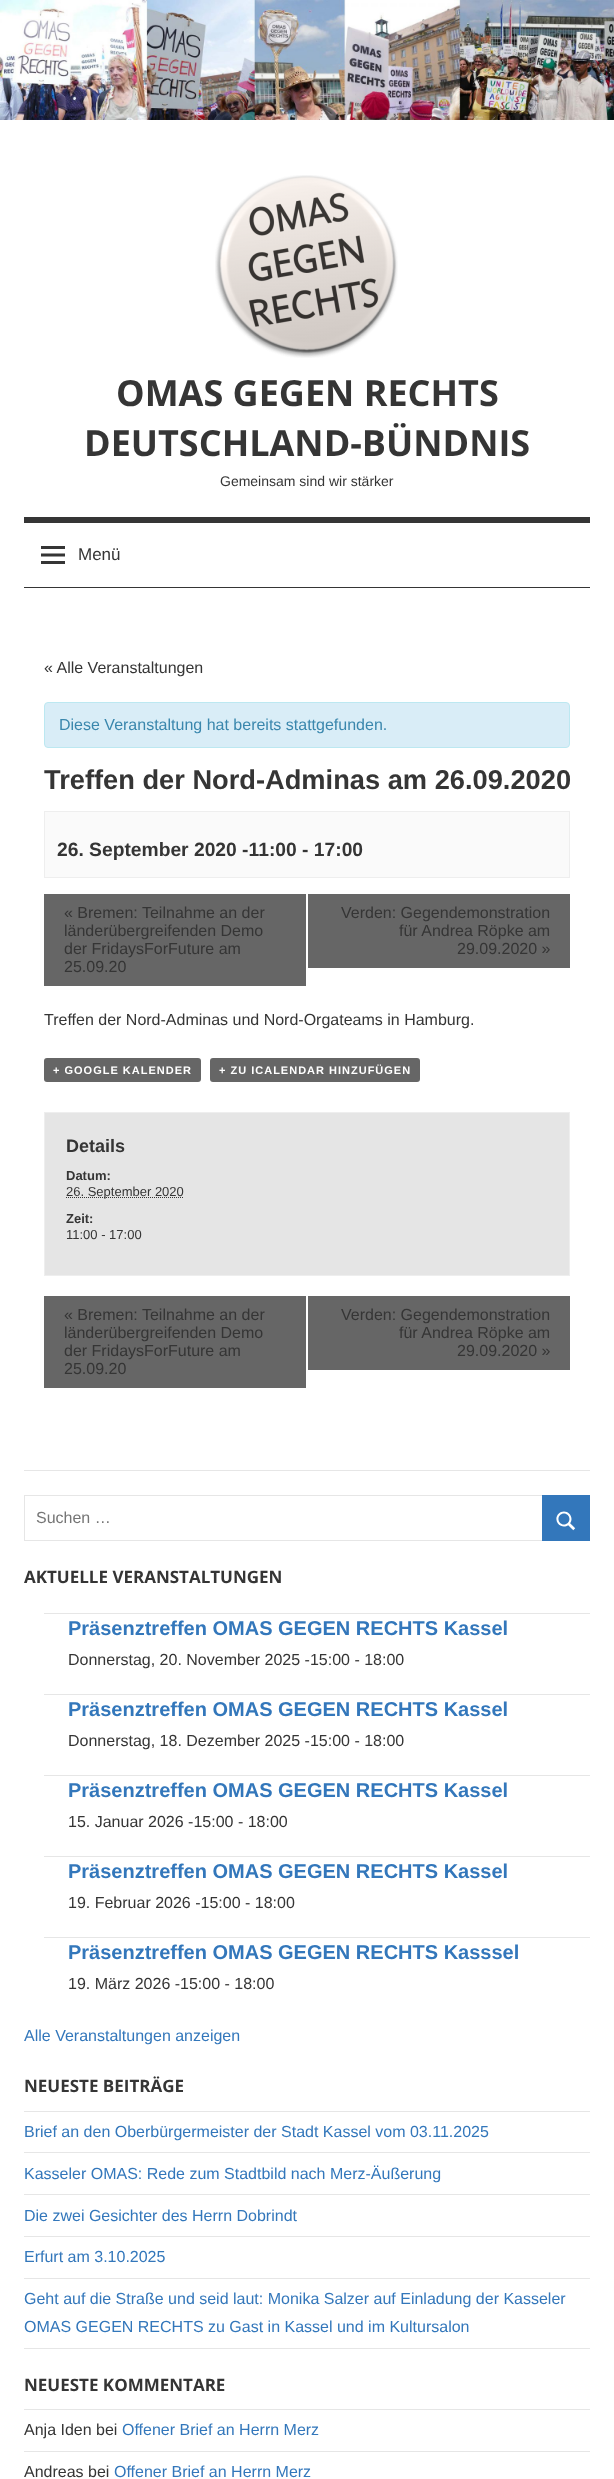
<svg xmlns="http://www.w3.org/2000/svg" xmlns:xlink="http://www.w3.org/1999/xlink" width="614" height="2479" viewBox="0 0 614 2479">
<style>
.cls-1{font:bold 36px Open Sans;fill:#353535}
.cls-2{font:14px Liberation Sans;fill:#353535}
.cls-3{font:17px Liberation Sans;fill:#353535}
.cls-4{font:16px Liberation Sans;fill:#353535}
.cls-5{font:16px Liberation Sans;fill:#3a87ad}
.cls-6{font:bold 27.25px Liberation Sans;fill:#353535}
.cls-7{font:bold 19.25px Liberation Sans;fill:#353535}
.cls-8{font:bold 11px Liberation Sans;letter-spacing:1px;fill:#ffffff}
.cls-9{font:bold 18px Liberation Sans;fill:#353535}
.cls-10{font:bold 13px Liberation Sans;fill:#353535}
.cls-11{font:13px Liberation Sans;fill:#353535}
.cls-12{font:16px Liberation Sans;fill:#757575}
.cls-13{font:bold 17px Open Sans;fill:#353535}
.cls-14{font:bold 20px Liberation Sans;fill:#3377bb}
.cls-15{font:16px Liberation Sans;fill:#3377bb}
</style>
<rect width="100%" height="100%" fill="#ffffff"/>
<image xlink:href="image0.png" x="0" y="0" width="614" height="120"/>
<image xlink:href="image1.png" x="215" y="175" width="183" height="183"/>
<rect fill="#353535" x="24" y="517" width="566" height="6"/>
<rect fill="#353535" x="24" y="587" width="566" height="1"/>
<image xlink:href="image2.png" x="41" y="546" width="24" height="18"/>
<rect fill="#d9edf7" stroke="#bce8f1" x="44.5" y="702.5" width="525" height="45" rx="3.5"/>
<rect fill="#fafafa" stroke="#eeeeee" x="44.5" y="811.5" width="525" height="66"/>
<rect fill="#666666" x="44" y="894" width="262" height="92"/>
<rect fill="#666666" x="308" y="894" width="262" height="74"/>
<rect fill="#666666" x="44" y="1058" width="157" height="24" rx="3"/>
<rect fill="#666666" x="210" y="1058" width="210" height="24" rx="3"/>
<rect fill="#e5e5e5" stroke="#eeeeee" x="44.5" y="1112.5" width="525" height="163"/>
<path fill="none" stroke="#353535" stroke-dasharray="1 1" d="M66 1197.5H184"/>
<rect fill="#666666" x="44" y="1296" width="262" height="92"/>
<rect fill="#666666" x="308" y="1296" width="262" height="74"/>
<rect fill="#e6e6e6" x="24" y="1470" width="566" height="1"/>
<rect fill="none" stroke="#e6e6e6" x="24.5" y="1495.5" width="565" height="45"/>
<rect fill="#3377bb" x="542" y="1495" width="48" height="46"/>
<image xlink:href="image3.png" x="556" y="1511" width="20" height="20"/>
<rect fill="#e6e6e6" x="44" y="1613" width="546" height="1"/>
<rect fill="#e6e6e6" x="44" y="1694" width="546" height="1"/>
<rect fill="#e6e6e6" x="44" y="1775" width="546" height="1"/>
<rect fill="#e6e6e6" x="44" y="1856" width="546" height="1"/>
<rect fill="#e6e6e6" x="44" y="1937" width="546" height="1"/>
<rect fill="#e6e6e6" x="24" y="2111" width="566" height="1"/>
<rect fill="#e6e6e6" x="24" y="2152" width="566" height="1"/>
<rect fill="#e6e6e6" x="24" y="2194" width="566" height="1"/>
<rect fill="#e6e6e6" x="24" y="2236" width="566" height="1"/>
<rect fill="#e6e6e6" x="24" y="2278" width="566" height="1"/>
<rect fill="#e6e6e6" x="24" y="2348" width="566" height="1"/>
<rect fill="#e6e6e6" x="24" y="2409" width="566" height="1"/>
<rect fill="#e6e6e6" x="24" y="2451" width="566" height="1"/>
<text class="cls-1" x="116" y="406">OMAS GEGEN RECHTS</text>
<text class="cls-1" x="84" y="456">DEUTSCHLAND-BÜNDNIS</text>
<text class="cls-2" x="220" y="486">Gemeinsam sind wir stärker</text>
<text class="cls-3" x="78" y="560">Menü</text>
<text class="cls-4" x="44" y="673">« Alle Veranstaltungen</text>
<text class="cls-5" x="59" y="730">Diese Veranstaltung hat bereits stattgefunden.</text>
<text class="cls-6" x="44" y="789">Treffen der Nord-Adminas am 26.09.2020</text>
<text class="cls-7" x="57" y="856">26. September 2020 -11:00 - 17:00</text>
<text class="cls-4"><tspan x="64" y="918">« Bremen: Teilnahme an der</tspan><tspan x="64" y="936">länderübergreifenden Demo</tspan><tspan x="64" y="954">der FridaysForFuture am</tspan><tspan x="64" y="972">25.09.20</tspan></text>
<text class="cls-4" x="341" y="918">Verden: Gegendemonstration</text>
<text class="cls-4" x="399" y="936">für Andrea Röpke am</text>
<text class="cls-4" x="457" y="954">29.09.2020 »</text>
<text class="cls-4" x="44" y="1025">Treffen der Nord-Adminas und Nord-Orgateams in Hamburg.</text>
<text class="cls-8" x="53" y="1074">+ GOOGLE KALENDER</text>
<text class="cls-8" x="219" y="1074">+ ZU ICALENDAR HINZUFÜGEN</text>
<text class="cls-9" x="66" y="1152">Details</text>
<text class="cls-10" x="66" y="1180">Datum:</text>
<text class="cls-11" x="66" y="1196">26. September 2020</text>
<text class="cls-10" x="66" y="1223">Zeit:</text>
<text class="cls-11" x="66" y="1239">11:00 - 17:00</text>
<text class="cls-4"><tspan x="64" y="1320">« Bremen: Teilnahme an der</tspan><tspan x="64" y="1338">länderübergreifenden Demo</tspan><tspan x="64" y="1356">der FridaysForFuture am</tspan><tspan x="64" y="1374">25.09.20</tspan></text>
<text class="cls-4" x="341" y="1320">Verden: Gegendemonstration</text>
<text class="cls-4" x="399" y="1338">für Andrea Röpke am</text>
<text class="cls-4" x="457" y="1356">29.09.2020 »</text>
<text class="cls-12" x="36" y="1523">Suchen …</text>
<text class="cls-13" x="24" y="1583">AKTUELLE VERANSTALTUNGEN</text>
<text class="cls-14" x="68" y="1635">Präsenztreffen OMAS GEGEN RECHTS Kassel</text>
<text class="cls-4" x="68" y="1665">Donnerstag, 20. November 2025 -15:00 - 18:00</text>
<text class="cls-14" x="68" y="1716">Präsenztreffen OMAS GEGEN RECHTS Kassel</text>
<text class="cls-4" x="68" y="1746">Donnerstag, 18. Dezember 2025 -15:00 - 18:00</text>
<text class="cls-14" x="68" y="1797">Präsenztreffen OMAS GEGEN RECHTS Kassel</text>
<text class="cls-4" x="68" y="1827">15. Januar 2026 -15:00 - 18:00</text>
<text class="cls-14" x="68" y="1878">Präsenztreffen OMAS GEGEN RECHTS Kassel</text>
<text class="cls-4" x="68" y="1908">19. Februar 2026 -15:00 - 18:00</text>
<text class="cls-14" x="68" y="1959">Präsenztreffen OMAS GEGEN RECHTS Kasssel</text>
<text class="cls-4" x="68" y="1989">19. März 2026 -15:00 - 18:00</text>
<text class="cls-15" x="24" y="2041">Alle Veranstaltungen anzeigen</text>
<text class="cls-13" x="24" y="2092">NEUESTE BEITRÄGE</text>
<text class="cls-15" x="24" y="2137">Brief an den Oberbürgermeister der Stadt Kassel vom 03.11.2025</text>
<text class="cls-15" x="24" y="2179">Kasseler OMAS: Rede zum Stadtbild nach Merz-Äußerung</text>
<text class="cls-15" x="24" y="2221">Die zwei Gesichter des Herrn Dobrindt</text>
<text class="cls-15" x="24" y="2262">Erfurt am 3.10.2025</text>
<text class="cls-15"><tspan x="24" y="2304">Geht auf die Straße und seid laut: Monika Salzer auf Einladung der Kasseler</tspan><tspan x="24" y="2332">OMAS GEGEN RECHTS zu Gast in Kassel und im Kultursalon</tspan></text>
<text class="cls-13" x="24" y="2391">NEUESTE KOMMENTARE</text>
<text class="cls-4" x="24" y="2435">Anja Iden bei</text>
<text class="cls-15" x="122" y="2435">Offener Brief an Herrn Merz</text>
<text class="cls-4" x="24" y="2477">Andreas bei</text>
<text class="cls-15" x="114" y="2477">Offener Brief an Herrn Merz</text>
</svg>
